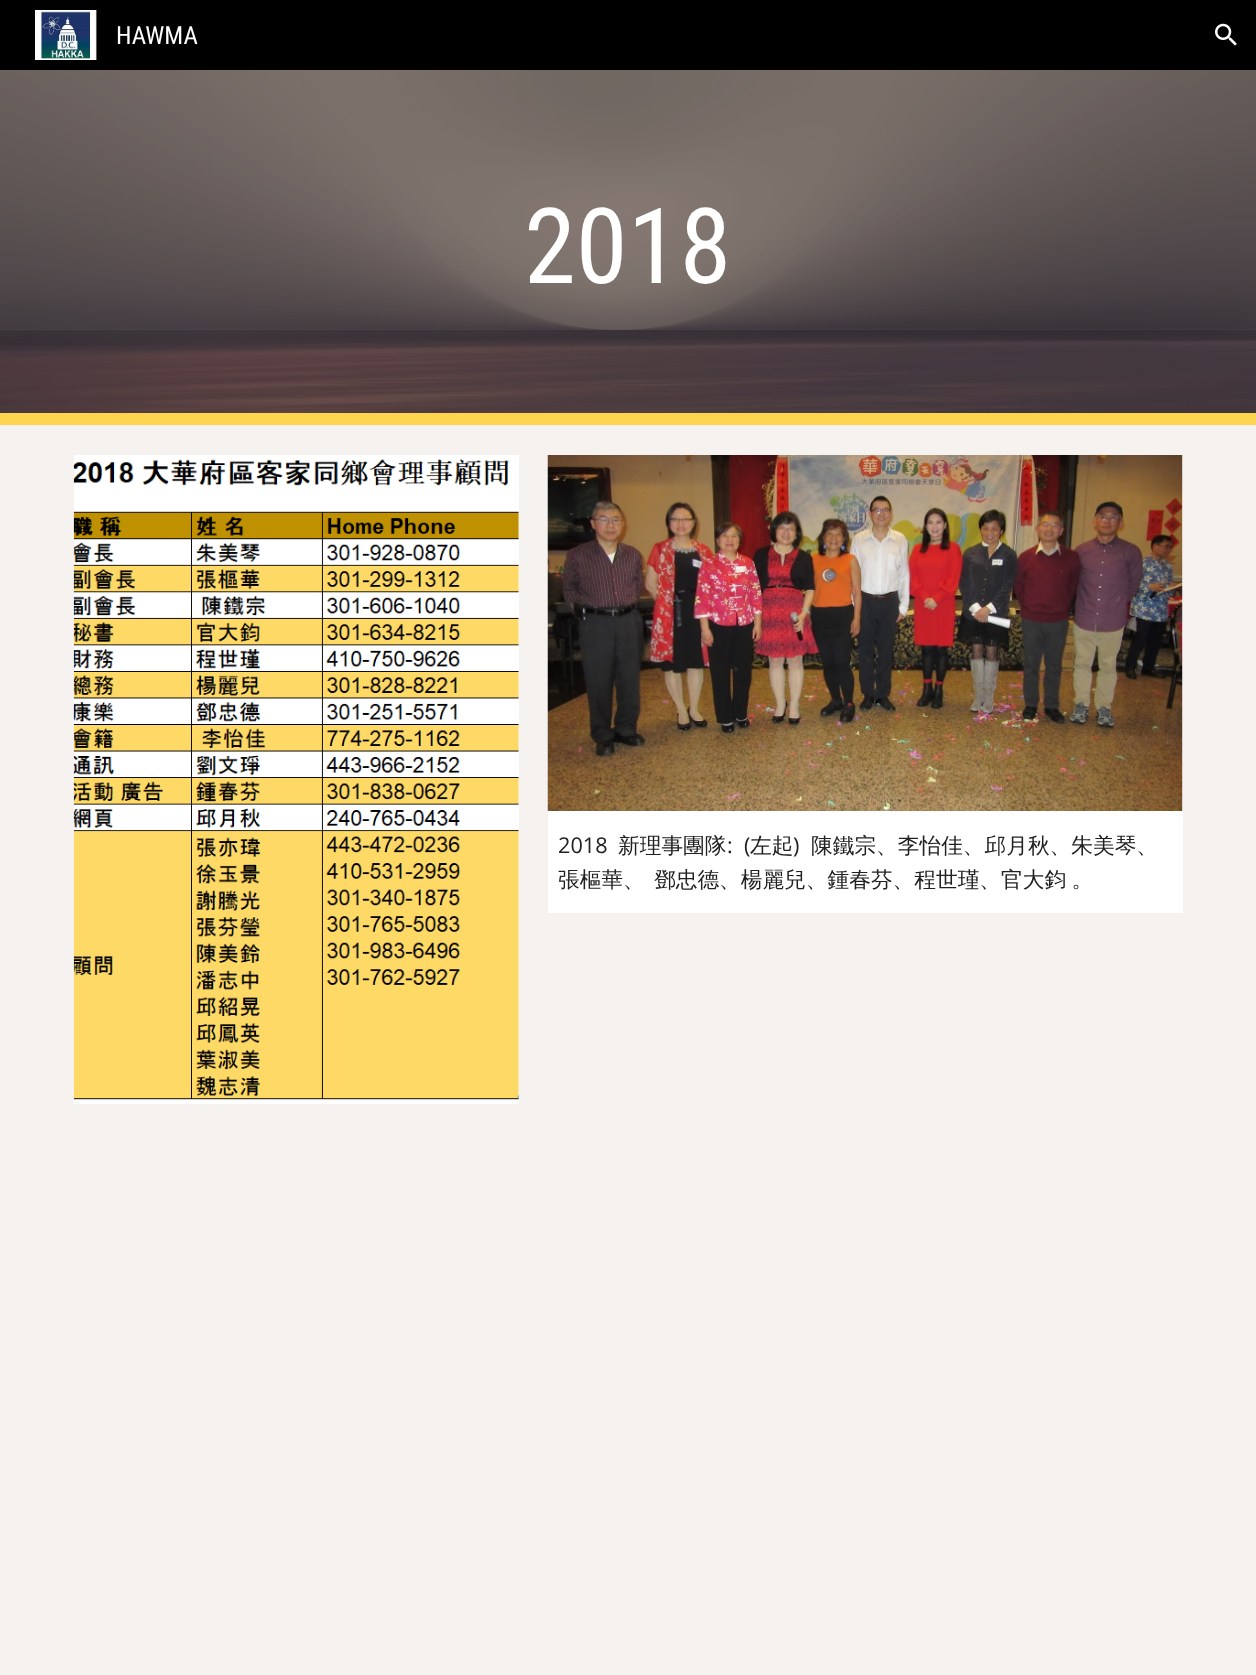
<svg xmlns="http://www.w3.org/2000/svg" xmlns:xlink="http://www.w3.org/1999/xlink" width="1256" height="1675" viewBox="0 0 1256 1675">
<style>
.cls-1{font:25px Roboto Condensed;fill:#ffffff}
.cls-2{font:105px Roboto Condensed;fill:#ffffff}
.cls-3{font:21.7px Open Sans;fill:#212121}
.cls-4{font:500 21.7px WenQuanYi Zen Hei;fill:#212121}
</style>
<rect width="100%" height="100%" fill="#f5f2f0"/>
<rect fill="#000000" x="0" y="0" width="1256" height="70"/>
<image xlink:href="image0.png" x="35" y="10" width="62" height="50"/>
<image xlink:href="image1.png" x="1215" y="23" width="22" height="23"/>
<image xlink:href="image2.png" x="0" y="70" width="1256" height="343"/>
<rect fill="#ffd54f" x="0" y="413" width="1256" height="12"/>
<rect fill="#ffffff" x="74" y="455" width="445" height="649"/>
<image xlink:href="image3.png" x="73" y="459" width="446" height="641"/>
<rect fill="#ffffff" x="1182" y="455" width="1" height="356"/>
<image xlink:href="image4.png" x="547" y="455" width="636" height="356"/>
<rect fill="#ffffff" x="548" y="811" width="635" height="102"/>
<text class="cls-1" x="116" y="44">HAWMA</text>
<text class="cls-2" x="524" y="283">2018</text>
<text class="cls-3" x="558" y="853">2018</text>
<text class="cls-4" x="618" y="853">新理事團隊</text>
<text class="cls-3" xml:space="preserve" x="727" y="853">:  (</text>
<text class="cls-4" x="750" y="853">左起</text>
<text class="cls-3" x="793" y="853">)</text>
<text class="cls-4" x="811" y="853">陳鐵宗、李怡佳、邱月秋、朱美琴、</text>
<text class="cls-4" x="558" y="887">張樞華、</text>
<text class="cls-4" x="654" y="887" word-spacing="-1">鄧忠德、楊麗兒、鍾春芬、程世瑾、官大鈞 。</text>
</svg>
